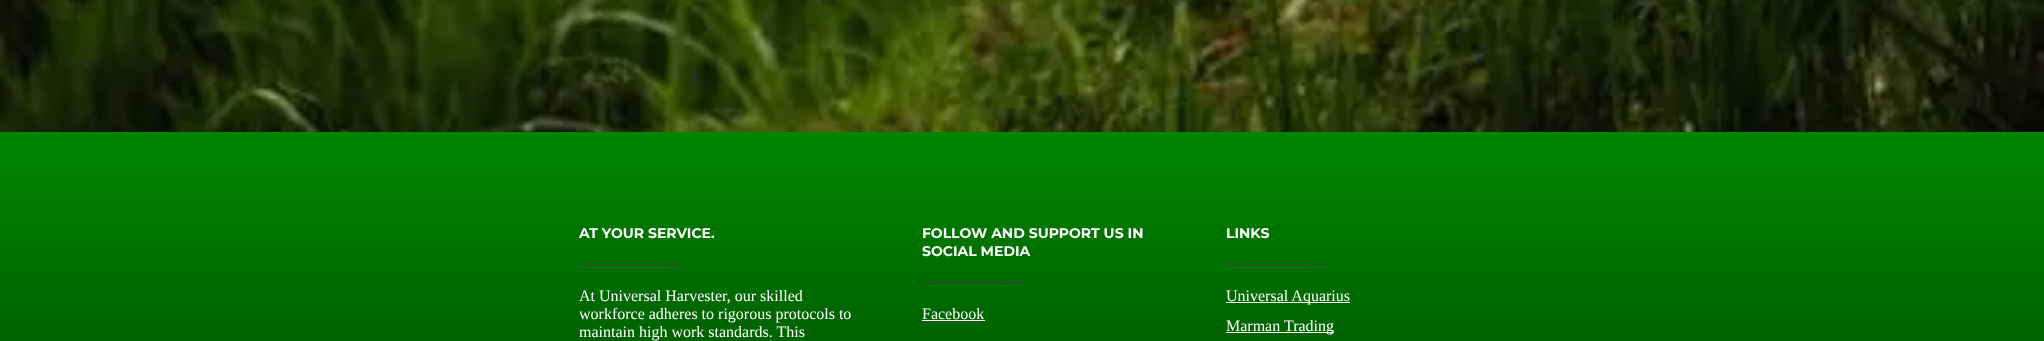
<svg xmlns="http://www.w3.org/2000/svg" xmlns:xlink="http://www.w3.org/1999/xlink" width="2044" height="341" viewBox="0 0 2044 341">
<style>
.cls-1{font:bold 14px Montserrat;fill:#ffffff}
.cls-2{font:16px Liberation Serif;fill:#ffffff}
</style>
<defs>
<linearGradient id="g1" gradientUnits="userSpaceOnUse" x1="1022" y1="132" x2="1022" y2="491"><stop offset="0" stop-color="#008600"/><stop offset="1" stop-color="#004800"/></linearGradient>
</defs>
<rect width="100%" height="100%" fill="#ffffff"/>
<image xlink:href="image0.png" x="0" y="0" width="2044" height="132"/>
<rect fill="url(#g1)" x="0" y="132" width="2044" height="209"/>
<rect fill="#3c3c3c" x="579" y="264" width="100" height="1"/>
<rect fill="#3c3c3c" x="922" y="282" width="100" height="1"/>
<rect fill="#fefefe" x="922" y="320" width="63" height="1"/>
<rect fill="#3c3c3c" x="1226" y="264" width="100" height="1"/>
<rect fill="#fefefe" x="1226" y="302" width="124" height="1"/>
<rect fill="#fefefe" x="1226" y="332" width="108" height="1"/>
<text class="cls-1" x="579" y="238">AT YOUR SERVICE.</text>
<text class="cls-2"><tspan x="579" y="301">At Universal Harvester, our skilled</tspan><tspan x="579" y="319">workforce adheres to rigorous protocols to</tspan><tspan x="579" y="337">maintain high work standards. This</tspan></text>
<text class="cls-1"><tspan x="922" y="238">FOLLOW AND SUPPORT US IN</tspan><tspan x="922" y="256">SOCIAL MEDIA</tspan></text>
<text class="cls-2" x="922" y="319">Facebook</text>
<text class="cls-1" x="1226" y="238">LINKS</text>
<text class="cls-2"><tspan x="1226" y="301">Universal Aquarius</tspan><tspan x="1226" y="331">Marman Trading</tspan></text>
</svg>
